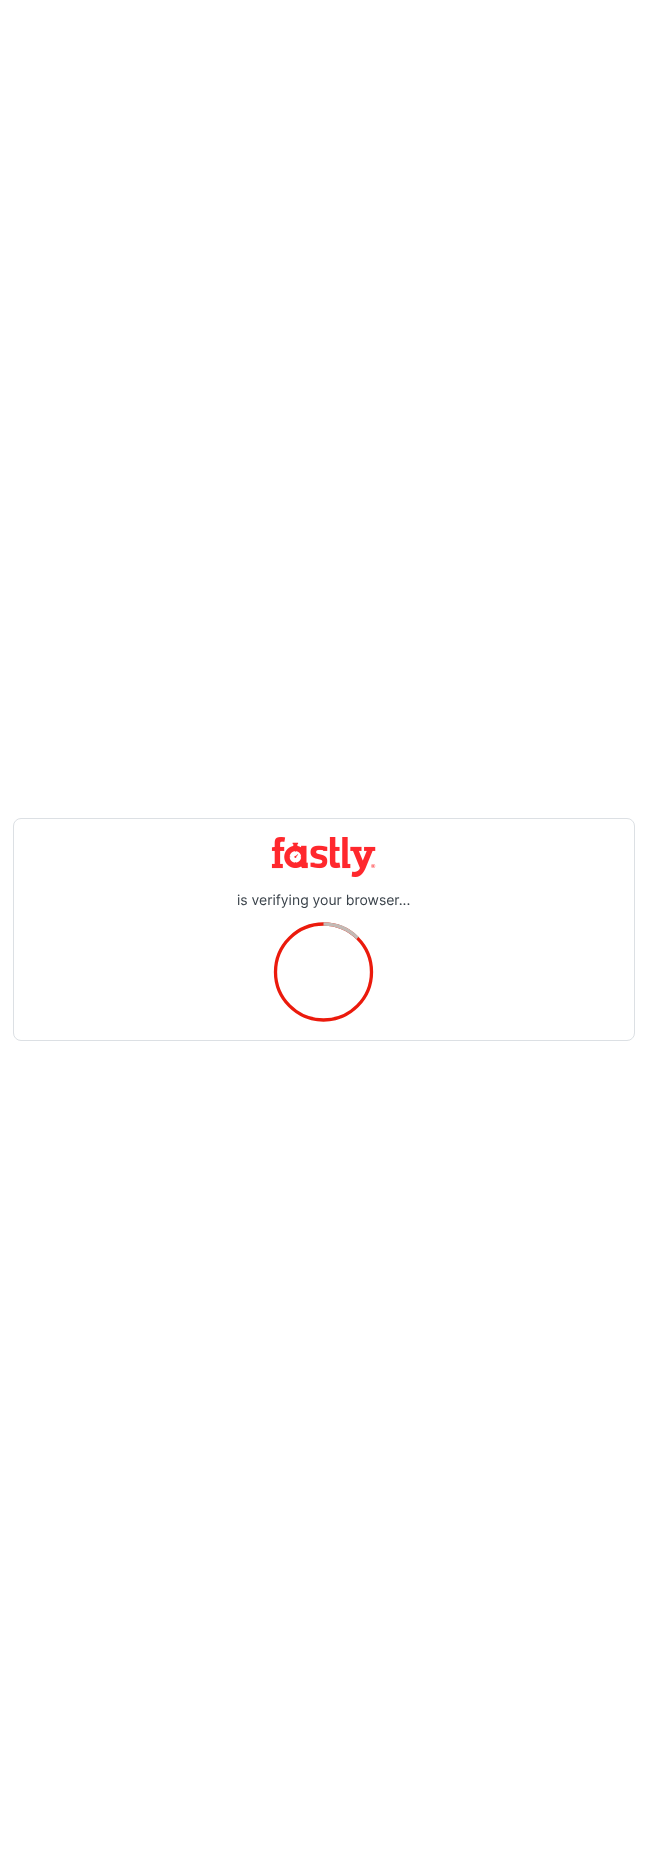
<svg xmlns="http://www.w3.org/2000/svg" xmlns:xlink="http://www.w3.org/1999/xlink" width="648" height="1858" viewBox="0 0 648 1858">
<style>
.cls-1{font:14px Inter;fill:#3a424a}
</style>
<rect width="100%" height="100%" fill="#ffffff"/>
<rect fill="none" stroke="#dce0e4" x="13.5" y="818.5" width="621" height="222" rx="7.5"/>
<image xlink:href="image0.png" x="271" y="837" width="105" height="40"/>
<path fill="none" stroke="#eb1a0c" stroke-width="3.3" d="M275.5 972C275.5 945.5 297 924 323.5 924C350 924 371.5 945.5 371.5 972C371.5 998.5 350 1020 323.5 1020C297 1020 275.5 998.5 275.5 972Z"/>
<path fill="none" stroke="#c2bab5" stroke-width="3.3" d="M357.5 938C348.5 929 336.5 924 323.5 924"/>
<text class="cls-1" x="237" y="905">is verifying your browser...</text>
</svg>
